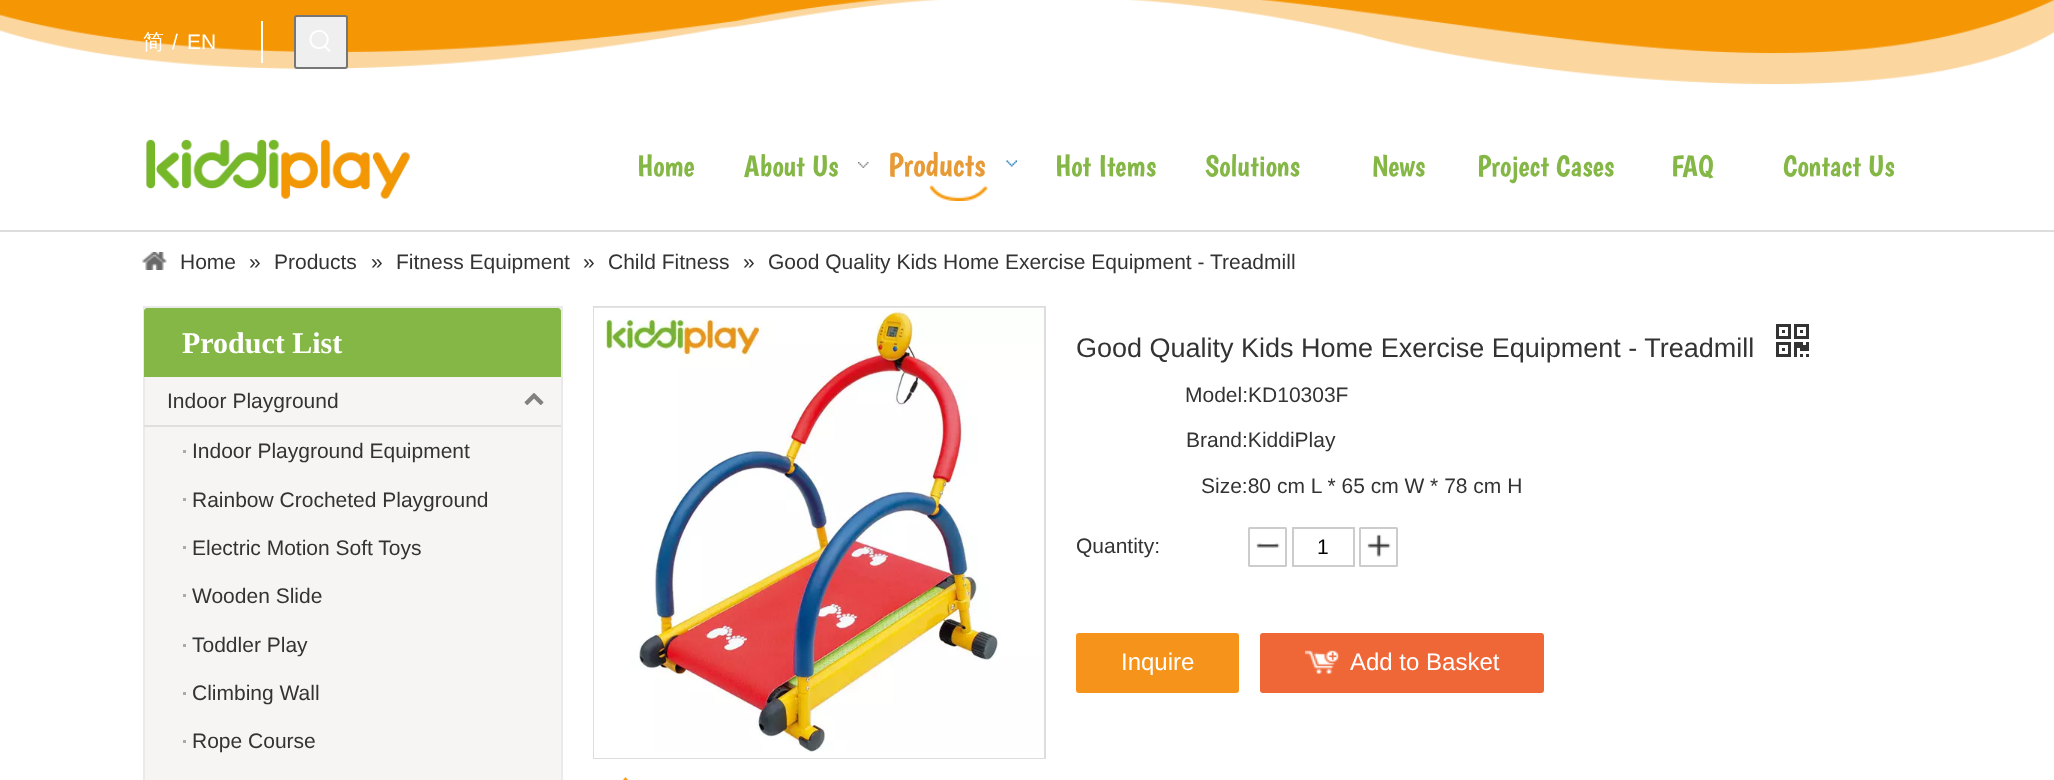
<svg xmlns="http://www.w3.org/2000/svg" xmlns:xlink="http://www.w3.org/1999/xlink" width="2054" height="780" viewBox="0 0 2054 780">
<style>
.cls-1{font:500 21px WenQuanYi Zen Hei;fill:#ffffff}
.cls-2{font:21px Liberation Sans;fill:#ffffff}
.cls-3{font:30px Boogaloo;fill:#84b745}
.cls-4{font:33px Boogaloo;fill:#e79b37}
.cls-5{font:21px Liberation Sans;fill:#333333}
.cls-6{font:bold 30px Liberation Serif;fill:#ffffff}
.cls-7{font:27px Liberation Sans;fill:#333333}
.cls-8{font:21px Liberation Sans;fill:#000000}
.cls-9{font:24px Liberation Sans;fill:#ffffff}
</style>
<rect width="100%" height="100%" fill="#ffffff"/>
<image xlink:href="image0.png" x="0" y="0" width="2054" height="85"/>
<rect fill="#ffffff" x="261" y="21" width="2" height="42"/>
<rect fill="#efefef" stroke="#767676" stroke-width="2" x="295" y="16" width="52" height="52" rx="2"/>
<image xlink:href="image1.png" x="309" y="30" width="22" height="22"/>
<image xlink:href="image2.png" x="146" y="139" width="264" height="60"/>
<image xlink:href="image3.png" x="858" y="162" width="11" height="6"/>
<image xlink:href="image4.png" x="929" y="185" width="59" height="16"/>
<image xlink:href="image5.png" x="1006" y="160" width="11" height="7"/>
<rect fill="#dddddd" x="0" y="230" width="2054" height="2"/>
<image xlink:href="image6.png" x="142" y="252" width="25" height="18"/>
<rect fill="#f6f5f4" x="145" y="308" width="416" height="472"/>
<rect fill="#eaeaea" x="143" y="306" width="420" height="2"/>
<rect fill="#eaeaea" x="561" y="306" width="2" height="474"/>
<rect fill="#eaeaea" x="143" y="306" width="2" height="474"/>
<path fill="#84b745" d="M147 308H558C559.5 308 561 309.5 561 311V377H144V311C144 309.5 145.5 308 147 308Z"/>
<image xlink:href="image7.png" x="524" y="393" width="20" height="12"/>
<rect fill="#dfdfdf" x="144" y="425" width="417" height="2"/>
<rect fill="#ababaa" x="183" y="450" width="3" height="3"/>
<rect fill="#ababaa" x="183" y="498" width="3" height="3"/>
<rect fill="#ababaa" x="183" y="546" width="3" height="3"/>
<rect fill="#ababaa" x="183" y="594" width="3" height="3"/>
<rect fill="#ababaa" x="183" y="644" width="3" height="3"/>
<rect fill="#ababaa" x="183" y="692" width="3" height="3"/>
<rect fill="#ababaa" x="183" y="740" width="3" height="3"/>
<rect fill="none" stroke="#dddddd" stroke-width="2" x="594" y="307" width="451" height="451"/>
<rect fill="#ffffff" x="594" y="752" width="450" height="6"/>
<image xlink:href="image8.png" x="594" y="307" width="450" height="445"/>
<path fill="#fe9b0a" d="M633 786H618L625.5 777Z"/>
<image xlink:href="image9.png" x="1776" y="324" width="33" height="33"/>
<image xlink:href="image10.png" x="1256" y="543" width="24" height="5"/>
<rect fill="none" stroke="#cccccc" stroke-width="2" x="1249" y="528" width="37" height="38" rx="0.5"/>
<rect fill="none" stroke="#cccccc" stroke-width="2" x="1293" y="528" width="61" height="38"/>
<image xlink:href="image11.png" x="1367" y="534" width="24" height="23"/>
<rect fill="none" stroke="#cccccc" stroke-width="2" x="1360" y="528" width="37" height="38" rx="0.5"/>
<rect fill="#f6931b" x="1076" y="633" width="163" height="60" rx="3"/>
<rect fill="#ef6737" x="1260" y="633" width="284" height="60" rx="3"/>
<image xlink:href="image12.png" x="1305" y="650" width="34" height="24"/>
<text class="cls-1" x="143" y="49">简</text>
<text class="cls-2" x="172" y="49">/</text>
<text class="cls-2" x="187" y="49">EN</text>
<text class="cls-3" x="637" y="176">Home</text>
<text class="cls-3" x="744" y="176">About Us</text>
<text class="cls-4" x="888" y="176">Products</text>
<text class="cls-3" x="1055" y="176">Hot Items</text>
<text class="cls-3" x="1205" y="176">Solutions</text>
<text class="cls-3" x="1372" y="176">News</text>
<text class="cls-3" x="1477" y="176">Project Cases</text>
<text class="cls-3" x="1671" y="176">FAQ</text>
<text class="cls-3" x="1783" y="176">Contact Us</text>
<text class="cls-5" x="180" y="269">Home</text>
<text class="cls-5" x="249" y="269">»</text>
<text class="cls-5" x="274" y="269">Products</text>
<text class="cls-5" x="371" y="269">»</text>
<text class="cls-5" x="396" y="269">Fitness Equipment</text>
<text class="cls-5" x="583" y="269">»</text>
<text class="cls-5" x="608" y="269">Child Fitness</text>
<text class="cls-5" x="743" y="269">»</text>
<text class="cls-5" x="768" y="269">Good Quality Kids Home Exercise Equipment - Treadmill</text>
<text class="cls-6" x="182" y="353">Product List</text>
<text class="cls-5" x="167" y="408">Indoor Playground</text>
<text class="cls-5" x="192" y="458">Indoor Playground Equipment</text>
<text class="cls-5" x="192" y="507">Rainbow Crocheted Playground</text>
<text class="cls-5" x="192" y="555">Electric Motion Soft Toys</text>
<text class="cls-5" x="192" y="603">Wooden Slide</text>
<text class="cls-5" x="192" y="652">Toddler Play</text>
<text class="cls-5" x="192" y="700">Climbing Wall</text>
<text class="cls-5" x="192" y="748">Rope Course</text>
<text class="cls-7" x="1076" y="357">Good Quality Kids Home Exercise Equipment - Treadmill</text>
<text class="cls-5" x="1185" y="402">Model:KD10303F</text>
<text class="cls-5" x="1186" y="447">Brand:KiddiPlay</text>
<text class="cls-5" x="1201" y="493">Size:80 cm L * 65 cm W * 78 cm H</text>
<text class="cls-5" x="1076" y="553">Quantity:</text>
<text class="cls-8" x="1317" y="554">1</text>
<text class="cls-9" x="1121" y="670">Inquire</text>
<text class="cls-9" x="1350" y="670">Add to Basket</text>
</svg>
